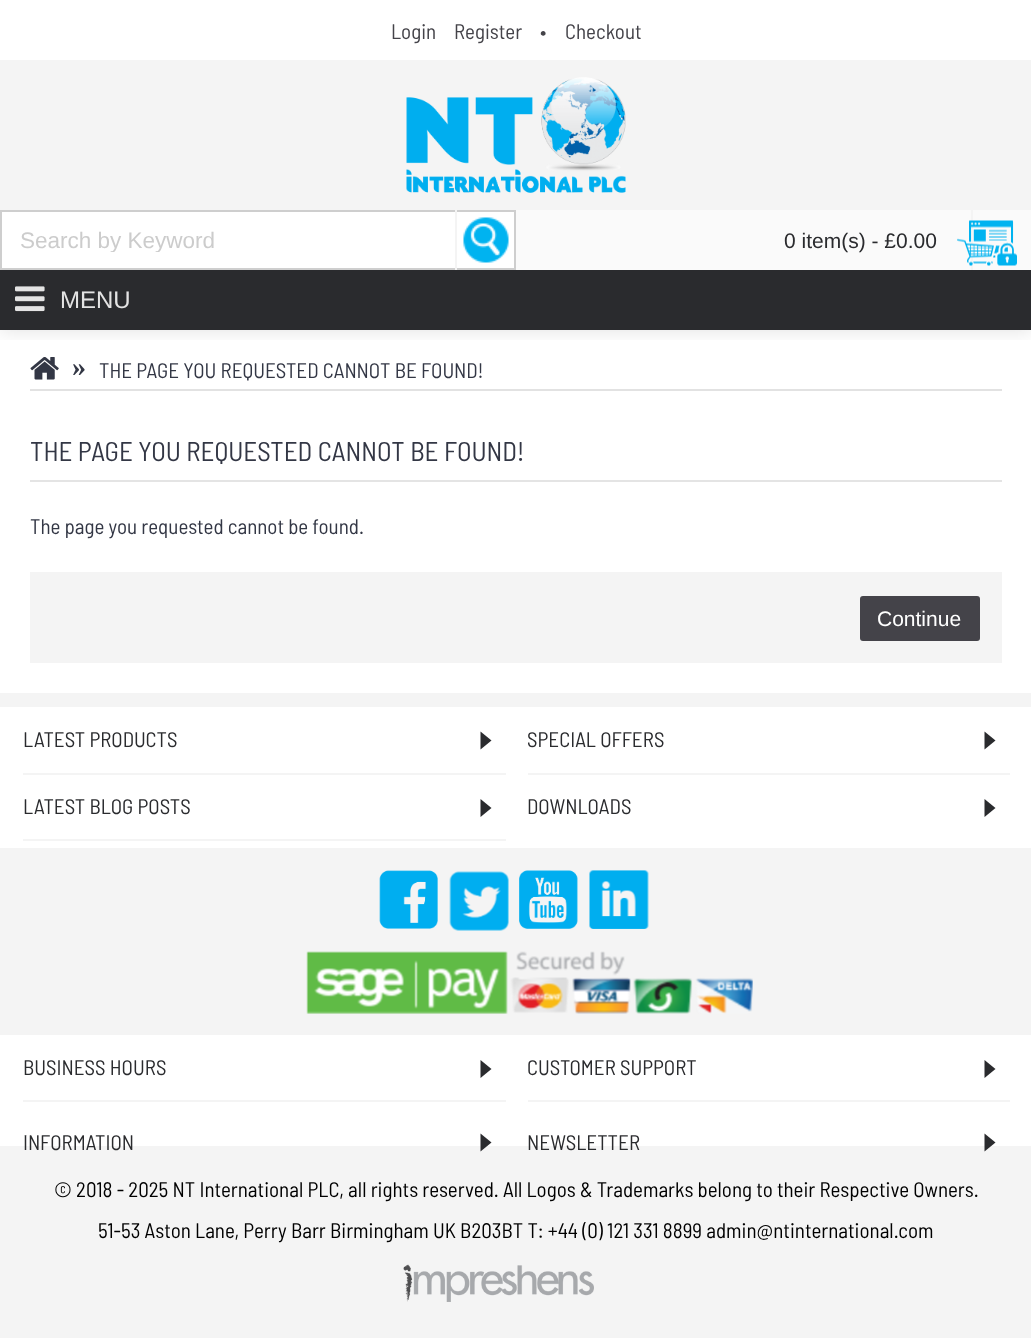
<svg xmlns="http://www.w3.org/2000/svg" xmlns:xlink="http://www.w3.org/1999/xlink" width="1031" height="1338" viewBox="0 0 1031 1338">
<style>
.cls-1{font:21px Barlow Semi Condensed;fill:#444349}
.cls-2{font:22.5px Liberation Sans;fill:#cccccc}
.cls-3{font:21px Liberation Sans;fill:#2a2b2e}
.cls-4{font:24px Liberation Sans;fill:#e4e4e4}
.cls-5{font:bold 28px Liberation Serif;fill:#333745}
.cls-6{font:21px Barlow Semi Condensed;fill:#333745}
.cls-7{font:27px Barlow Semi Condensed;fill:#333745}
.cls-8{font:21px Liberation Sans;fill:#ffffff}
.cls-9{font:21px Barlow Semi Condensed;fill:#2a2b2e}
.cls-10{font:21px Barlow Semi Condensed;fill:#000000}
</style>
<defs>
<clipPath id="clip1"><rect x="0" y="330" width="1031" height="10"/></clipPath>
<clipPath id="clip2"><rect x="20" y="227" width="420" height="25"/></clipPath>
</defs>
<rect width="100%" height="100%" fill="#f4f4f4"/>
<rect fill="#ffffff" x="0" y="330" width="1031" height="363"/>
<image xlink:href="image4.png" x="30" y="357" width="29" height="23"/>
<g clip-path="url(#clip1)">
<rect fill="#000000" fill-opacity="0.1" filter="blur(9px)" x="0" y="2" width="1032" height="330"/>
</g>
<rect fill="#ffffff" x="0" y="0" width="1031" height="60"/>
<image xlink:href="image0.png" x="406" y="77" width="220" height="116"/>
<rect fill="#ffffff" stroke="#cecece" stroke-width="2" x="1" y="211" width="514" height="58"/>
<rect fill="#f4f4f4" x="455" y="210" width="2" height="60"/>
<image xlink:href="image1.png" x="463" y="217" width="46" height="46"/>
<rect fill="#fafafa" x="516" y="210" width="515" height="60"/>
<rect fill="#f4f4f4" x="971" y="210" width="2" height="60"/>
<image xlink:href="image2.png" x="957" y="220" width="60" height="46"/>
<rect fill="#2a2b2e" x="0" y="270" width="1031" height="60"/>
<image xlink:href="image3.png" x="15" y="286" width="30" height="26"/>
<rect fill="#e2e2e2" x="30" y="389" width="972" height="2"/>
<rect fill="#e4e4e4" x="30" y="480" width="972" height="2"/>
<rect fill="#f4f4f4" x="30" y="572" width="972" height="91"/>
<rect fill="#444349" x="860" y="596" width="120" height="45" rx="3"/>
<rect fill="#ffffff" x="0" y="707" width="1031" height="439"/>
<rect fill="#f4f4f4" x="23" y="773" width="483" height="2"/>
<path fill="#2a2b2e" d="M480.5 731.5V749.5L491.5 740.5Z"/>
<rect fill="#f4f4f4" x="528" y="773" width="482" height="2"/>
<path fill="#2a2b2e" d="M984.5 731.5V749.5L995.5 740.5Z"/>
<rect fill="#f4f4f4" x="23" y="839" width="483" height="2"/>
<path fill="#2a2b2e" d="M480.5 799V817L491.5 808Z"/>
<path fill="#2a2b2e" d="M984.5 799V817L995.5 808Z"/>
<rect fill="#f4f4f4" x="0" y="848" width="1031" height="187"/>
<image xlink:href="image5.png" x="379" y="870" width="59" height="59"/>
<image xlink:href="image6.png" x="449" y="871" width="60" height="60"/>
<image xlink:href="image7.png" x="519" y="870" width="59" height="59"/>
<image xlink:href="image8.png" x="589" y="870" width="60" height="59"/>
<image xlink:href="image9.png" x="306" y="951" width="447" height="63"/>
<rect fill="#f4f4f4" x="23" y="1100" width="483" height="2"/>
<path fill="#2a2b2e" d="M480.5 1060V1078L491.5 1069Z"/>
<rect fill="#f4f4f4" x="528" y="1100" width="482" height="2"/>
<path fill="#2a2b2e" d="M984.5 1060V1078L995.5 1069Z"/>
<path fill="#2a2b2e" d="M480.5 1133.5V1151.5L491.5 1142.5Z"/>
<path fill="#2a2b2e" d="M984.5 1133.5V1151.5L995.5 1142.5Z"/>
<image xlink:href="image10.png" x="403" y="1264" width="191" height="38"/>
<text class="cls-1" x="391" y="39">Login</text>
<text class="cls-1" x="454" y="39">Register</text>
<text class="cls-1" x="540" y="39">•</text>
<text class="cls-1" x="565" y="39">Checkout</text>
<g clip-path="url(#clip2)">
<text class="cls-2" x="20" y="248">Search by Keyword</text>
</g>
<text class="cls-3" x="784" y="248">0 item(s) - £0.00</text>
<text class="cls-4" x="60" y="308">MENU</text>
<text class="cls-5" x="72" y="376">»</text>
<text class="cls-6" x="99" y="378">THE PAGE YOU REQUESTED CANNOT BE FOUND!</text>
<text class="cls-7" x="30" y="461">THE PAGE YOU REQUESTED CANNOT BE FOUND!</text>
<text class="cls-6" x="30" y="534">The page you requested cannot be found.</text>
<text class="cls-8" x="877" y="626">Continue</text>
<text class="cls-9" x="23" y="747">LATEST PRODUCTS</text>
<text class="cls-9" x="527" y="747">SPECIAL OFFERS</text>
<text class="cls-9" x="23" y="814">LATEST BLOG POSTS</text>
<text class="cls-9" x="527" y="814">DOWNLOADS</text>
<text class="cls-9" x="23" y="1075">BUSINESS HOURS</text>
<text class="cls-9" x="527" y="1075">CUSTOMER SUPPORT</text>
<text class="cls-9" x="23" y="1150">INFORMATION</text>
<text class="cls-9" x="527" y="1150">NEWSLETTER</text>
<text class="cls-10" x="54" y="1197">© 2018 - 2025 NT International PLC, all rights reserved. All Logos &amp; Trademarks belong to their Respective Owners.</text>
<text class="cls-10" x="98" y="1238">51-53 Aston Lane, Perry Barr Birmingham UK B203BT T: +44 (0) 121 331 8899 admin@ntinternational.com</text>
</svg>
